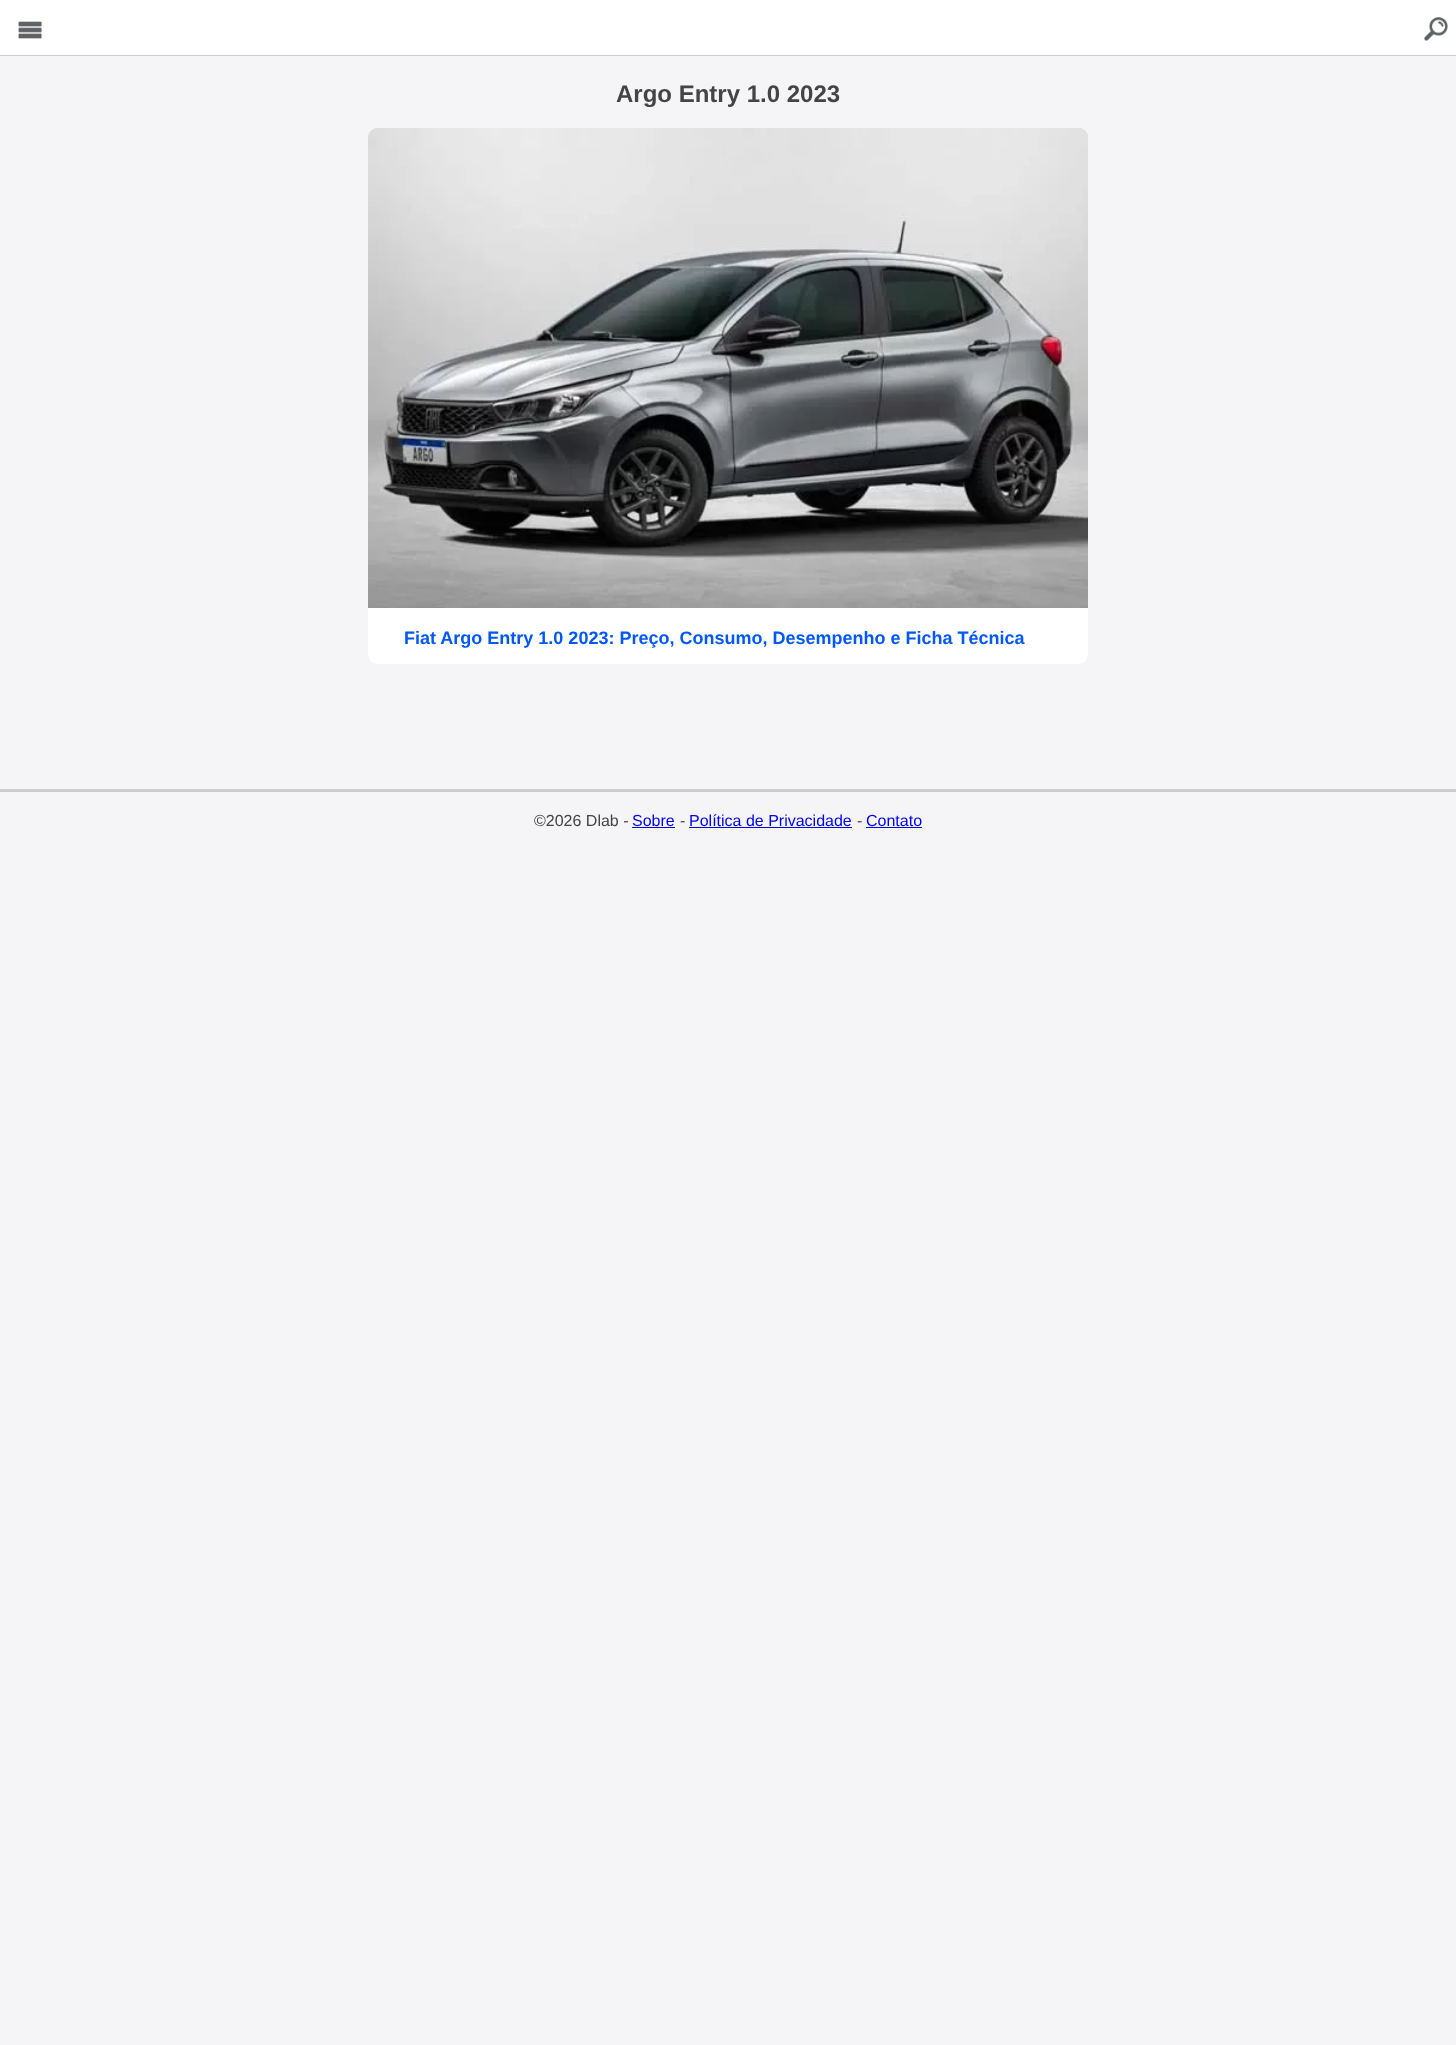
<svg xmlns="http://www.w3.org/2000/svg" xmlns:xlink="http://www.w3.org/1999/xlink" width="1456" height="2045" viewBox="0 0 1456 2045">
<style>
.cls-1{font:bold 24px Liberation Sans;fill:#444444}
.cls-2{font:bold 18px Liberation Sans;fill:#0058fc}
.cls-3{font:16px Liberation Sans;fill:#444444}
.cls-4{font:16px Liberation Sans;fill:#0000ee}
</style>
<rect width="100%" height="100%" fill="#f5f5f7"/>
<rect fill="#ffffff" x="0" y="0" width="1456" height="55"/>
<rect fill="#cccccc" x="0" y="55" width="1456" height="1"/>
<image xlink:href="image0.png" x="18" y="21" width="24" height="18"/>
<image xlink:href="image1.png" x="1424" y="17" width="24" height="24"/>
<rect fill="#ffffff" x="368" y="128" width="720" height="536" rx="10"/>
<path fill="#cccccc" d="M378 128H1078C1083.5 128 1088 132.5 1088 138V608H368V138C368 132.5 372.5 128 378 128Z"/>
<image xlink:href="image2.png" x="368" y="128" width="720" height="480"/>
<rect fill="#cccccc" x="0" y="789" width="1456" height="3"/>
<rect fill="#0000ee" x="632" y="827" width="43" height="1"/>
<rect fill="#0000ee" x="689" y="827" width="163" height="1"/>
<rect fill="#0000ee" x="866" y="827" width="56" height="1"/>
<text class="cls-1" x="616" y="102">Argo Entry 1.0 2023</text>
<text class="cls-2" x="404" y="644">Fiat Argo Entry 1.0 2023: Preço, Consumo, Desempenho e Ficha Técnica</text>
<text class="cls-3" x="534" y="826">©2026 Dlab -</text>
<text class="cls-4" x="632" y="826">Sobre</text>
<text class="cls-3" x="680" y="826">-</text>
<text class="cls-4" x="689" y="826">Política de Privacidade</text>
<text class="cls-3" x="857" y="826">-</text>
<text class="cls-4" x="866" y="826">Contato</text>
</svg>
